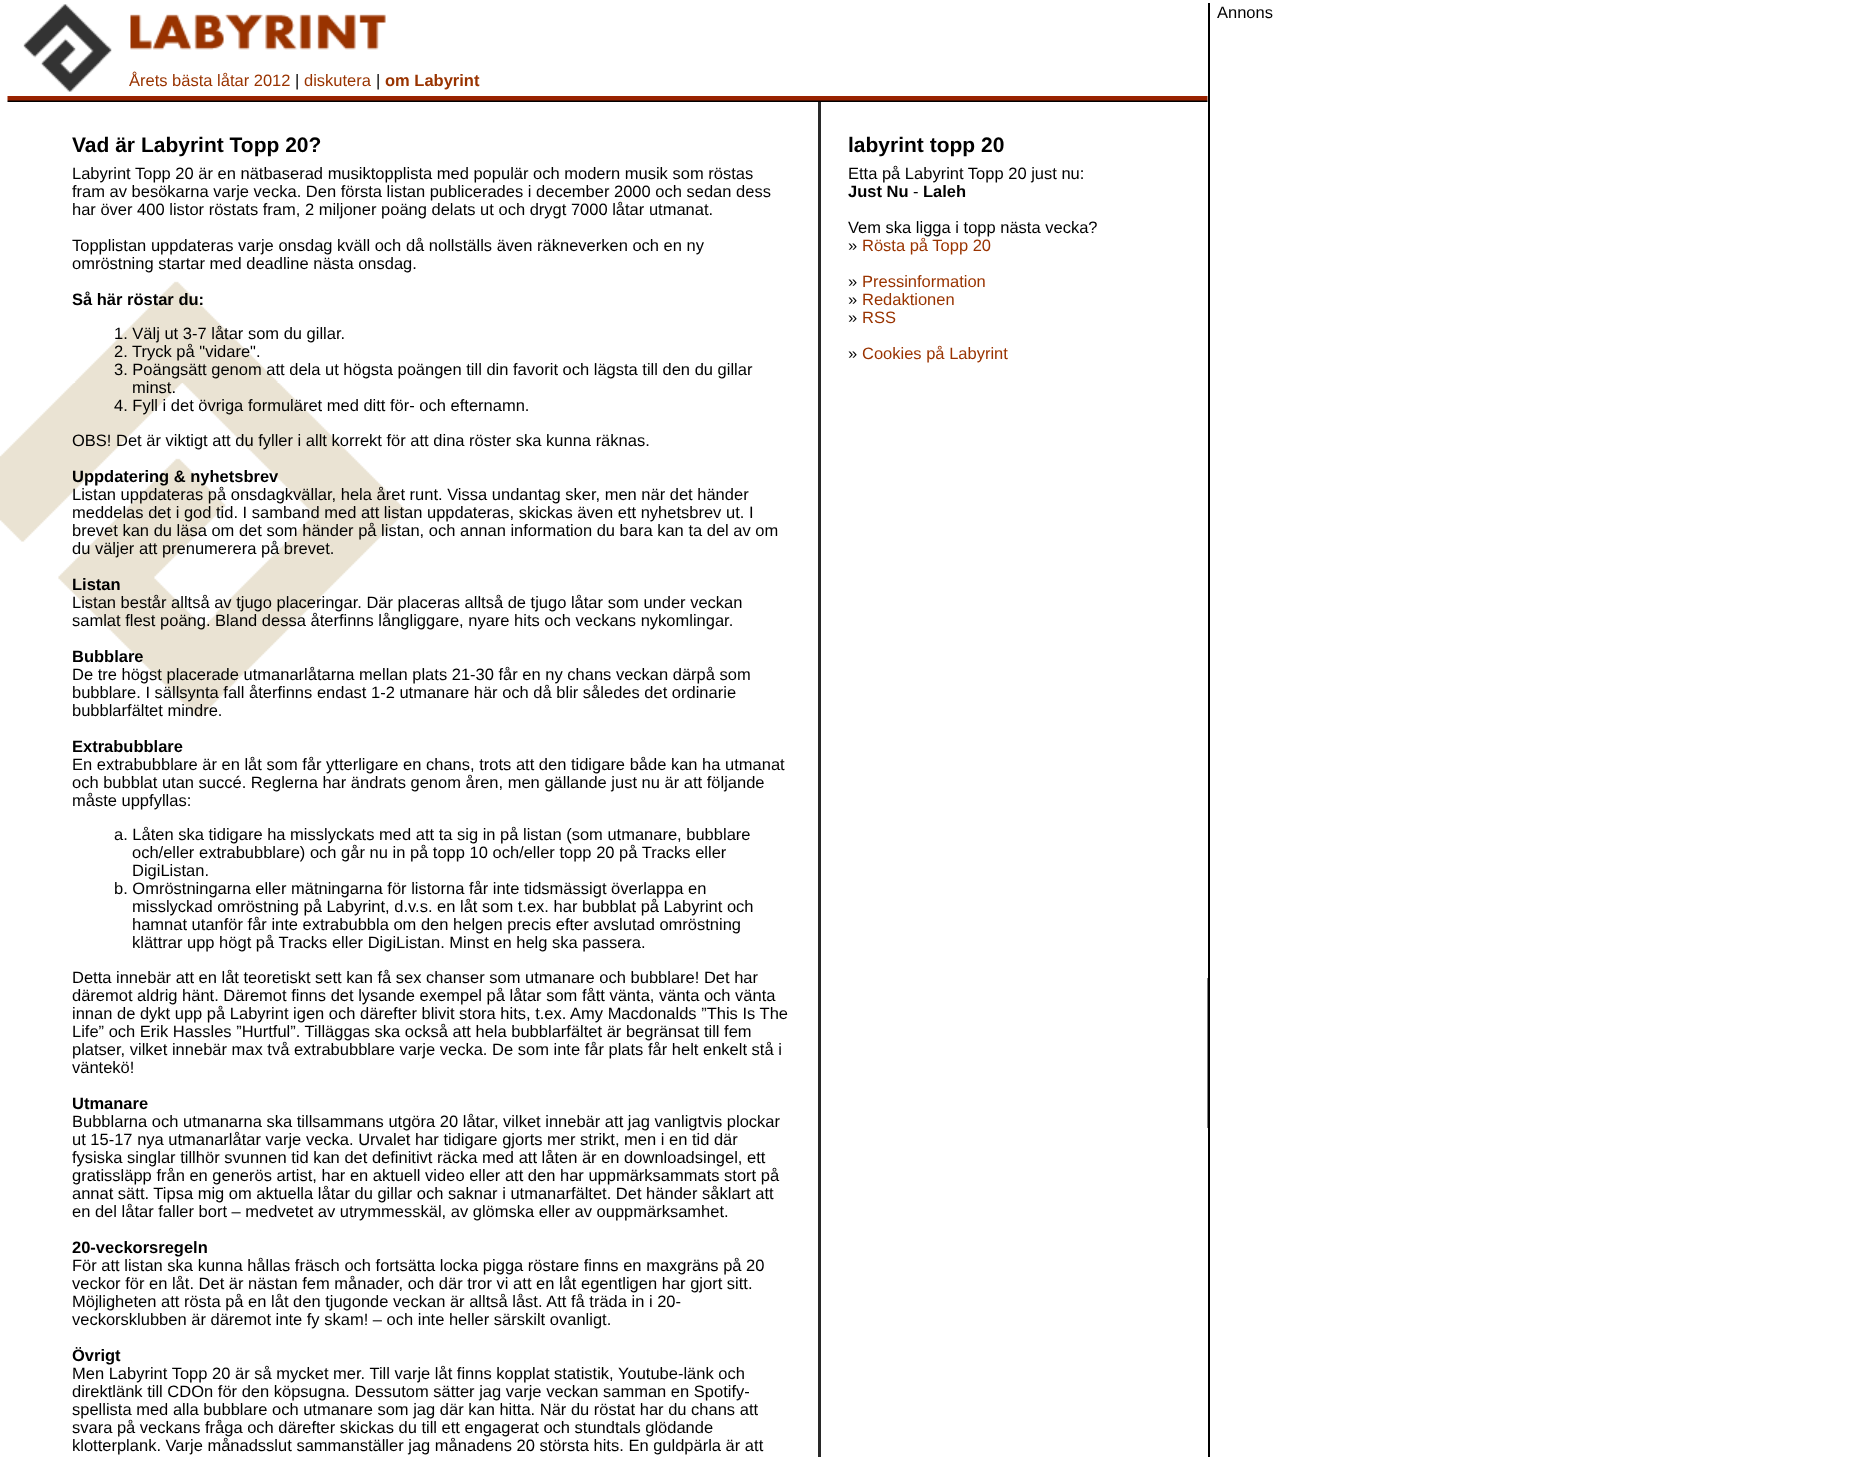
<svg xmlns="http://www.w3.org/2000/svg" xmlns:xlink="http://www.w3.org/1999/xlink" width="1852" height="1457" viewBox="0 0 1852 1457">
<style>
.cls-1{font:16.5px Liberation Sans;fill:#000000}
.cls-2{font:16.5px Liberation Sans;fill:#993300}
.cls-3{font:bold 16.5px Liberation Sans;fill:#993300}
.cls-4{font:bold 21px Liberation Sans;fill:#000000}
.cls-5{font:bold 16.5px Liberation Sans;fill:#000000}
</style>
<rect width="100%" height="100%" fill="#ffffff"/>
<image xlink:href="image0.png" x="0" y="281" width="406" height="437"/>
<rect fill="#000000" x="1208" y="3" width="2" height="1454"/>
<rect fill="#808080" x="1207" y="978" width="1" height="150"/>
<image xlink:href="image1.png" x="23" y="4" width="89" height="88"/>
<image xlink:href="image2.png" x="130" y="14" width="256" height="36"/>
<image xlink:href="image3.png" x="7" y="96" width="1201" height="6"/>
<rect fill="#292929" x="818" y="102" width="3" height="1355"/>
<text class="cls-1" x="1217" y="18">Annons</text>
<text class="cls-2" x="129" y="86">Årets bästa låtar 2012</text>
<text class="cls-1" x="295" y="86">|</text>
<text class="cls-2" x="304" y="86">diskutera</text>
<text class="cls-1" x="376" y="86">|</text>
<text class="cls-3" x="385" y="86">om Labyrint</text>
<text class="cls-4" x="72" y="152">Vad är Labyrint Topp 20?</text>
<text class="cls-1"><tspan x="72" y="179">Labyrint Topp 20 är en nätbaserad musiktopplista med populär och modern musik som röstas</tspan><tspan x="72" y="197">fram av besökarna varje vecka. Den första listan publicerades i december 2000 och sedan dess</tspan><tspan x="72" y="215">har över 400 listor röstats fram, 2 miljoner poäng delats ut och drygt 7000 låtar utmanat.</tspan></text>
<text class="cls-1"><tspan x="72" y="251">Topplistan uppdateras varje onsdag kväll och då nollställs även räkneverken och en ny</tspan><tspan x="72" y="269">omröstning startar med deadline nästa onsdag.</tspan></text>
<text class="cls-5" x="72" y="305">Så här röstar du:</text>
<text class="cls-1"><tspan x="114" y="339">1. Välj ut 3-7 låtar som du gillar.</tspan><tspan x="114" y="357">2. Tryck på "vidare".</tspan><tspan x="114" y="375">3. Poängsätt genom att dela ut högsta poängen till din favorit och lägsta till den du gillar</tspan></text>
<text class="cls-1" x="132" y="393">minst.</text>
<text class="cls-1" x="114" y="411">4. Fyll i det övriga formuläret med ditt för- och efternamn.</text>
<text class="cls-1" x="72" y="446">OBS! Det är viktigt att du fyller i allt korrekt för att dina röster ska kunna räknas.</text>
<text class="cls-5" x="72" y="482">Uppdatering &amp; nyhetsbrev</text>
<text class="cls-1"><tspan x="72" y="500">Listan uppdateras på onsdagkvällar, hela året runt. Vissa undantag sker, men när det händer</tspan><tspan x="72" y="518">meddelas det i god tid. I samband med att listan uppdateras, skickas även ett nyhetsbrev ut. I</tspan><tspan x="72" y="536">brevet kan du läsa om det som händer på listan, och annan information du bara kan ta del av om</tspan><tspan x="72" y="554">du väljer att prenumerera på brevet.</tspan></text>
<text class="cls-5" x="72" y="590">Listan</text>
<text class="cls-1"><tspan x="72" y="608">Listan består alltså av tjugo placeringar. Där placeras alltså de tjugo låtar som under veckan</tspan><tspan x="72" y="626">samlat flest poäng. Bland dessa återfinns långliggare, nyare hits och veckans nykomlingar.</tspan></text>
<text class="cls-5" x="72" y="662">Bubblare</text>
<text class="cls-1"><tspan x="72" y="680">De tre högst placerade utmanarlåtarna mellan plats 21-30 får en ny chans veckan därpå som</tspan><tspan x="72" y="698">bubblare. I sällsynta fall återfinns endast 1-2 utmanare här och då blir således det ordinarie</tspan><tspan x="72" y="716">bubblarfältet mindre.</tspan></text>
<text class="cls-5" x="72" y="752">Extrabubblare</text>
<text class="cls-1"><tspan x="72" y="770">En extrabubblare är en låt som får ytterligare en chans, trots att den tidigare både kan ha utmanat</tspan><tspan x="72" y="788">och bubblat utan succé. Reglerna har ändrats genom åren, men gällande just nu är att följande</tspan><tspan x="72" y="806">måste uppfyllas:</tspan></text>
<text class="cls-1" x="114" y="840">a. Låten ska tidigare ha misslyckats med att ta sig in på listan (som utmanare, bubblare</text>
<text class="cls-1"><tspan x="132" y="858">och/eller extrabubblare) och går nu in på topp 10 och/eller topp 20 på Tracks eller</tspan><tspan x="132" y="876">DigiListan.</tspan></text>
<text class="cls-1" x="114" y="894">b. Omröstningarna eller mätningarna för listorna får inte tidsmässigt överlappa en</text>
<text class="cls-1"><tspan x="132" y="912">misslyckad omröstning på Labyrint, d.v.s. en låt som t.ex. har bubblat på Labyrint och</tspan><tspan x="132" y="930">hamnat utanför får inte extrabubbla om den helgen precis efter avslutad omröstning</tspan><tspan x="132" y="948">klättrar upp högt på Tracks eller DigiListan. Minst en helg ska passera.</tspan></text>
<text class="cls-1"><tspan x="72" y="983">Detta innebär att en låt teoretiskt sett kan få sex chanser som utmanare och bubblare! Det har</tspan><tspan x="72" y="1001">däremot aldrig hänt. Däremot finns det lysande exempel på låtar som fått vänta, vänta och vänta</tspan><tspan x="72" y="1019">innan de dykt upp på Labyrint igen och därefter blivit stora hits, t.ex. Amy Macdonalds ”This Is The</tspan><tspan x="72" y="1037">Life” och Erik Hassles ”Hurtful”. Tilläggas ska också att hela bubblarfältet är begränsat till fem</tspan><tspan x="72" y="1055">platser, vilket innebär max två extrabubblare varje vecka. De som inte får plats får helt enkelt stå i</tspan><tspan x="72" y="1073">väntekö!</tspan></text>
<text class="cls-5" x="72" y="1109">Utmanare</text>
<text class="cls-1"><tspan x="72" y="1127">Bubblarna och utmanarna ska tillsammans utgöra 20 låtar, vilket innebär att jag vanligtvis plockar</tspan><tspan x="72" y="1145">ut 15-17 nya utmanarlåtar varje vecka. Urvalet har tidigare gjorts mer strikt, men i en tid där</tspan><tspan x="72" y="1163">fysiska singlar tillhör svunnen tid kan det definitivt räcka med att låten är en downloadsingel, ett</tspan><tspan x="72" y="1181">gratissläpp från en generös artist, har en aktuell video eller att den har uppmärksammats stort på</tspan><tspan x="72" y="1199">annat sätt. Tipsa mig om aktuella låtar du gillar och saknar i utmanarfältet. Det händer såklart att</tspan><tspan x="72" y="1217">en del låtar faller bort – medvetet av utrymmesskäl, av glömska eller av ouppmärksamhet.</tspan></text>
<text class="cls-5" x="72" y="1253">20-veckorsregeln</text>
<text class="cls-1"><tspan x="72" y="1271">För att listan ska kunna hållas fräsch och fortsätta locka pigga röstare finns en maxgräns på 20</tspan><tspan x="72" y="1289">veckor för en låt. Det är nästan fem månader, och där tror vi att en låt egentligen har gjort sitt.</tspan><tspan x="72" y="1307">Möjligheten att rösta på en låt den tjugonde veckan är alltså låst. Att få träda in i 20-</tspan><tspan x="72" y="1325">veckorsklubben är däremot inte fy skam! – och inte heller särskilt ovanligt.</tspan></text>
<text class="cls-5" x="72" y="1361">Övrigt</text>
<text class="cls-1"><tspan x="72" y="1379">Men Labyrint Topp 20 är så mycket mer. Till varje låt finns kopplat statistik, Youtube-länk och</tspan><tspan x="72" y="1397">direktlänk till CDOn för den köpsugna. Dessutom sätter jag varje veckan samman en Spotify-</tspan><tspan x="72" y="1415">spellista med alla bubblare och utmanare som jag där kan hitta. När du röstat har du chans att</tspan><tspan x="72" y="1433">svara på veckans fråga och därefter skickas du till ett engagerat och stundtals glödande</tspan><tspan x="72" y="1451">klotterplank. Varje månadsslut sammanställer jag månadens 20 största hits. En guldpärla är att</tspan></text>
<text class="cls-4" x="848" y="152">labyrint topp 20</text>
<text class="cls-1" x="848" y="179">Etta på Labyrint Topp 20 just nu:</text>
<text class="cls-5" x="848" y="197">Just Nu</text>
<text class="cls-1" x="913" y="197">-</text>
<text class="cls-5" x="923" y="197">Laleh</text>
<text class="cls-1"><tspan x="848" y="233">Vem ska ligga i topp nästa vecka?</tspan><tspan x="848" y="251">»</tspan></text>
<text class="cls-2" x="862" y="251">Rösta på Topp 20</text>
<text class="cls-1" x="848" y="287">»</text>
<text class="cls-2" x="862" y="287">Pressinformation</text>
<text class="cls-1" x="848" y="305">»</text>
<text class="cls-2" x="862" y="305">Redaktionen</text>
<text class="cls-1" x="848" y="323">»</text>
<text class="cls-2" x="862" y="323">RSS</text>
<text class="cls-1" x="848" y="359">»</text>
<text class="cls-2" x="862" y="359">Cookies på Labyrint</text>
</svg>
